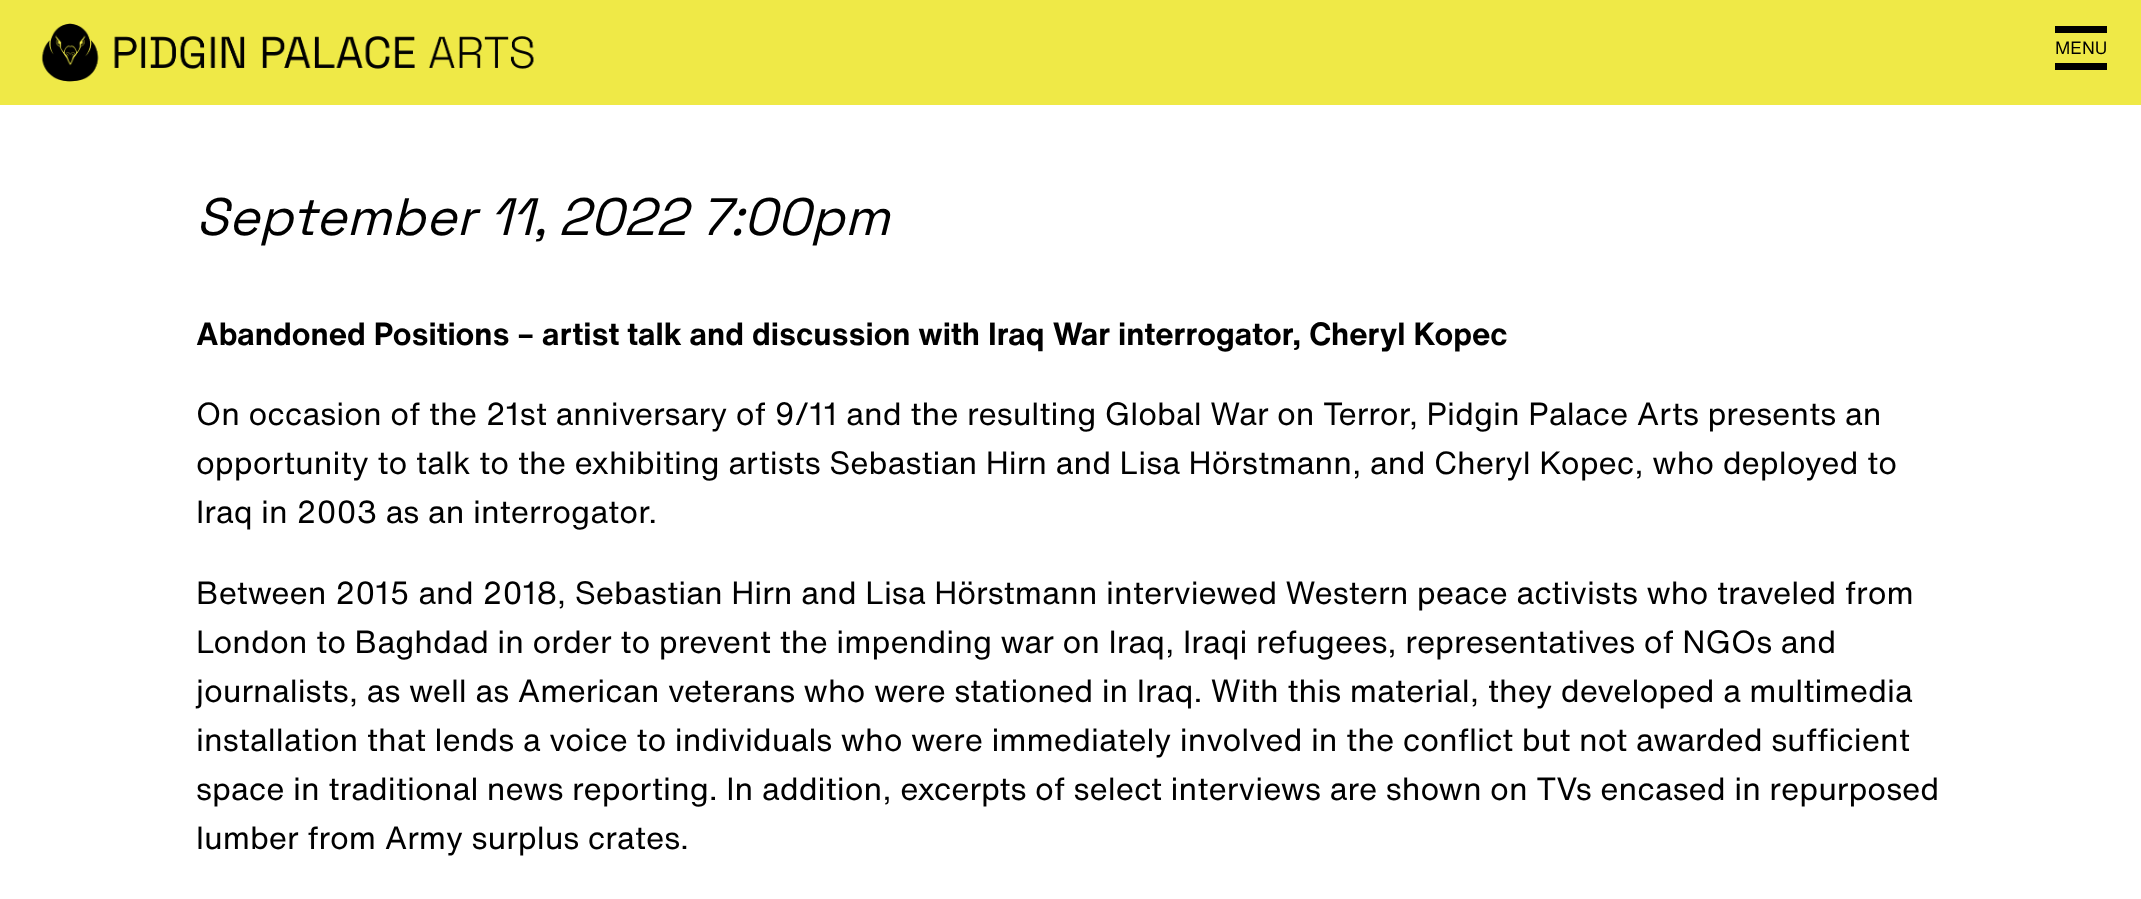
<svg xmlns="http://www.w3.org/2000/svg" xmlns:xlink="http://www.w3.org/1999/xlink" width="2141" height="899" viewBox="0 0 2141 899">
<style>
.cls-1{font:17.5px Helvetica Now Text;fill:#000000}
.cls-2{font:italic 52.5px Space Grotesk;fill:#000000}
.cls-3{font:bold 31.5px Helvetica Now Text;fill:#000000}
.cls-4{font:31.5px Helvetica Now Text;fill:#000000}
</style>
<rect width="100%" height="100%" fill="#ffffff"/>
<rect fill="#efe947" x="0" y="0" width="2141" height="105"/>
<image xlink:href="image0.png" x="41" y="23" width="493" height="59"/>
<rect fill="#000000" x="2055" y="26" width="52" height="7"/>
<rect fill="#000000" x="2055" y="63" width="52" height="7"/>
<text class="cls-1" x="2055" y="54">MENU</text>
<text class="cls-2" x="196" y="235">September 11, 2022 7:00pm</text>
<text class="cls-3" x="196" y="345">Abandoned Positions – artist talk and discussion with Iraq War interrogator, Cheryl Kopec</text>
<text class="cls-4"><tspan x="196" y="425">On occasion of the 21st anniversary of 9/11 and the resulting Global War on Terror, Pidgin Palace Arts presents an</tspan><tspan x="196" y="474">opportunity to talk to the exhibiting artists Sebastian Hirn and Lisa Hörstmann, and Cheryl Kopec, who deployed to</tspan><tspan x="196" y="523">Iraq in 2003 as an interrogator.</tspan></text>
<text class="cls-4"><tspan x="196" y="604">Between 2015 and 2018, Sebastian Hirn and Lisa Hörstmann interviewed Western peace activists who traveled from</tspan><tspan x="196" y="653">London to Baghdad in order to prevent the impending war on Iraq, Iraqi refugees, representatives of NGOs and</tspan><tspan x="196" y="702">journalists, as well as American veterans who were stationed in Iraq. With this material, they developed a multimedia</tspan><tspan x="196" y="751">installation that lends a voice to individuals who were immediately involved in the conflict but not awarded sufficient</tspan><tspan x="196" y="800">space in traditional news reporting. In addition, excerpts of select interviews are shown on TVs encased in repurposed</tspan><tspan x="196" y="849">lumber from Army surplus crates.</tspan></text>
</svg>
